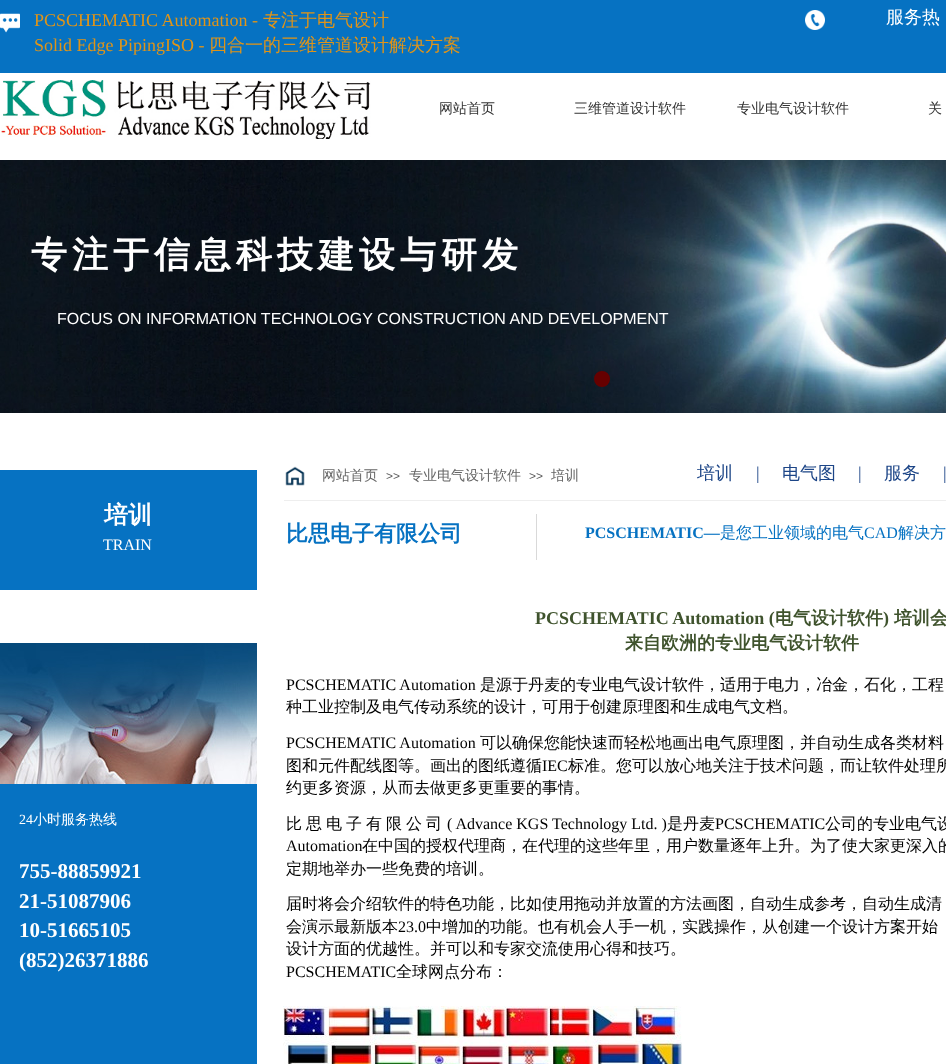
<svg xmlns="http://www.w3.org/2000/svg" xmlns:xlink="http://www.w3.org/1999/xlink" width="946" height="1064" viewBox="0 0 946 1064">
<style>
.cls-1{font:18px Liberation Serif;fill:#e09418}
.cls-2{font:500 18px WenQuanYi Zen Hei;fill:#e09418}
.cls-3{font:500 18px WenQuanYi Zen Hei;fill:#ffffff}
.cls-4{font:500 14px WenQuanYi Zen Hei;fill:#333333}
.cls-5{font:bold 36px WenQuanYi Zen Hei;letter-spacing:5px;fill:#ffffff}
.cls-6{font:16px Liberation Sans;fill:#ffffff}
.cls-7{font:500 14px WenQuanYi Zen Hei;fill:#666666}
.cls-8{font:12px Liberation Sans;fill:#5a5a5a}
.cls-9{font:500 18px WenQuanYi Zen Hei;fill:#1c4587}
.cls-10{font:18px Liberation Serif;fill:#1c4587}
.cls-11{font:bold 24px WenQuanYi Zen Hei;fill:#ffffff}
.cls-12{font:16px Liberation Serif;fill:#ffffff}
.cls-13{font:bold 22px WenQuanYi Zen Hei;fill:#0672c2}
.cls-14{font:bold 16px Liberation Serif;fill:#0672c2}
.cls-15{font:500 16px WenQuanYi Zen Hei;fill:#0672c2}
.cls-16{font:16px Liberation Serif;fill:#0672c2}
.cls-17{font:14px Liberation Serif;fill:#ffffff}
.cls-18{font:500 14px WenQuanYi Zen Hei;fill:#ffffff}
.cls-19{font:bold 21px Liberation Serif;fill:#ffffff}
.cls-20{font:bold 18px Liberation Serif;fill:#3f532d}
.cls-21{font:bold 18px WenQuanYi Zen Hei;fill:#3f532d}
.cls-22{font:16px Liberation Serif;fill:#000000}
.cls-23{font:500 16px WenQuanYi Zen Hei;fill:#000000}
</style>
<rect width="100%" height="100%" fill="#ffffff"/>
<rect fill="#0672c2" x="0" y="0" width="946" height="73"/>
<image xlink:href="image0.png" x="0" y="13" width="20" height="20"/>
<image xlink:href="image1.png" x="805" y="10" width="20" height="20"/>
<image xlink:href="image2.png" x="1" y="80" width="370" height="59"/>
<image xlink:href="image3.png" x="0" y="160" width="946" height="253"/>
<circle fill="#660000" stroke="#660000" stroke-width="2" cx="602" cy="379" r="7"/>
<rect fill="#0672c2" x="0" y="470" width="257" height="120"/>
<image xlink:href="image4.png" x="285" y="466" width="20" height="20"/>
<rect fill="#eeeeee" x="284" y="500" width="662" height="1"/>
<rect fill="#d9d9d9" x="536" y="514" width="1" height="46"/>
<rect fill="#0672c2" x="0" y="784" width="257" height="280"/>
<image xlink:href="image5.png" x="0" y="643" width="257" height="141"/>
<image xlink:href="image6.png" x="283" y="1006" width="399" height="58"/>
<text class="cls-1" x="34" y="26">PCSCHEMATIC Automation -</text>
<text class="cls-2" x="263" y="26">专注于电气设计</text>
<text class="cls-1" x="34" y="51">Solid Edge PipingISO -</text>
<text class="cls-2" x="209" y="51">四合一的三维管道设计解决方案</text>
<text class="cls-3" x="886" y="23">服务热</text>
<text class="cls-4" x="439" y="113">网站首页</text>
<text class="cls-4" x="574" y="113">三维管道设计软件</text>
<text class="cls-4" x="737" y="113">专业电气设计软件</text>
<text class="cls-4" x="928" y="113">关</text>
<text class="cls-5" x="31" y="267">专注于信息科技建设与研发</text>
<text class="cls-6" x="57" y="324">FOCUS ON INFORMATION TECHNOLOGY CONSTRUCTION AND DEVELOPMENT</text>
<text class="cls-7" x="322" y="480">网站首页</text>
<text class="cls-8" x="386" y="480">&gt;&gt;</text>
<text class="cls-7" x="409" y="480">专业电气设计软件</text>
<text class="cls-8" x="529" y="480">&gt;&gt;</text>
<text class="cls-7" x="551" y="480">培训</text>
<text class="cls-9" x="697" y="479">培训</text>
<text class="cls-10" x="756" y="479">|</text>
<text class="cls-9" x="782" y="479">电气图</text>
<text class="cls-10" x="858" y="479">|</text>
<text class="cls-9" x="884" y="479">服务</text>
<text class="cls-10" x="943" y="479">|</text>
<text class="cls-11" x="104" y="523">培训</text>
<text class="cls-12" x="103" y="550">TRAIN</text>
<text class="cls-13" x="286" y="541">比思电子有限公司</text>
<text class="cls-14" x="585" y="538">PCSCHEMATIC—</text>
<text class="cls-15" x="720" y="538">是您工业领域的电气</text>
<text class="cls-16" x="864" y="538">CAD</text>
<text class="cls-15" x="898" y="538">解决方</text>
<text class="cls-17" x="19" y="824">24</text>
<text class="cls-18" x="33" y="824">小时服务热线</text>
<text class="cls-19"><tspan x="19" y="878">755-88859921</tspan><tspan x="19" y="908">21-51087906</tspan><tspan x="19" y="937">10-51665105</tspan><tspan x="19" y="967">(852)26371886</tspan></text>
<text class="cls-20" x="535" y="624">PCSCHEMATIC Automation (</text>
<text class="cls-21" x="775" y="624">电气设计软件</text>
<text class="cls-20" x="883" y="624">)</text>
<text class="cls-21" x="894" y="624">培训会</text>
<text class="cls-21" x="625" y="649">来自欧洲的专业电气设计软件</text>
<text class="cls-22" x="286" y="690">PCSCHEMATIC Automation</text>
<text class="cls-23" x="480" y="690">是源于丹麦的专业电气设计软件，适用于电力，冶金，石化，工程</text>
<text class="cls-23" x="286" y="712">种工业控制及电气传动系统的设计，可用于创建原理图和生成电气文档。</text>
<text class="cls-22" x="286" y="748">PCSCHEMATIC Automation</text>
<text class="cls-23" x="480" y="748">可以确保您能快速而轻松地画出电气原理图，并自动生成各类材料</text>
<text class="cls-23" x="286" y="771">图和元件配线图等。画出的图纸遵循</text>
<text class="cls-22" x="542" y="771">IEC</text>
<text class="cls-23" x="568" y="771">标准。您可以放心地关注于技术问题，而让软件处理所</text>
<text class="cls-23" x="286" y="793">约更多资源，从而去做更多更重要的事情。</text>
<text class="cls-23" x="286" y="829">比</text>
<text class="cls-23" x="306" y="829">思</text>
<text class="cls-23" x="326" y="829">电</text>
<text class="cls-23" x="346" y="829">子</text>
<text class="cls-23" x="366" y="829">有</text>
<text class="cls-23" x="386" y="829">限</text>
<text class="cls-23" x="406" y="829">公</text>
<text class="cls-23" x="426" y="829">司</text>
<text class="cls-22" x="447" y="829">( Advance KGS Technology Ltd. )</text>
<text class="cls-23" x="667" y="829">是丹麦</text>
<text class="cls-22" x="715" y="829">PCSCHEMATIC</text>
<text class="cls-23" x="825" y="829">公司的专业电气设</text>
<text class="cls-22" x="286" y="851">Automation</text>
<text class="cls-23" x="362" y="851">在中国的授权代理商，在代理的这些年里，用户数量逐年上升。为了使大家更深入的</text>
<text class="cls-23" x="286" y="874">定期地举办一些免费的培训。</text>
<text class="cls-23"><tspan x="286" y="909">届时将会介绍软件的特色功能，比如使用拖动并放置的方法画图，自动生成参考，自动生成清</tspan><tspan x="286" y="932">会演示最新版本</tspan></text>
<text class="cls-22" x="398" y="932">23.0</text>
<text class="cls-23" x="426" y="932">中增加的功能。也有机会人手一机，实践操作，从创建一个设计方案开始</text>
<text class="cls-23" x="286" y="954">设计方面的优越性。并可以和专家交流使用心得和技巧。</text>
<text class="cls-22" x="286" y="977">PCSCHEMATIC</text>
<text class="cls-23" x="396" y="977">全球网点分布：</text>
</svg>
